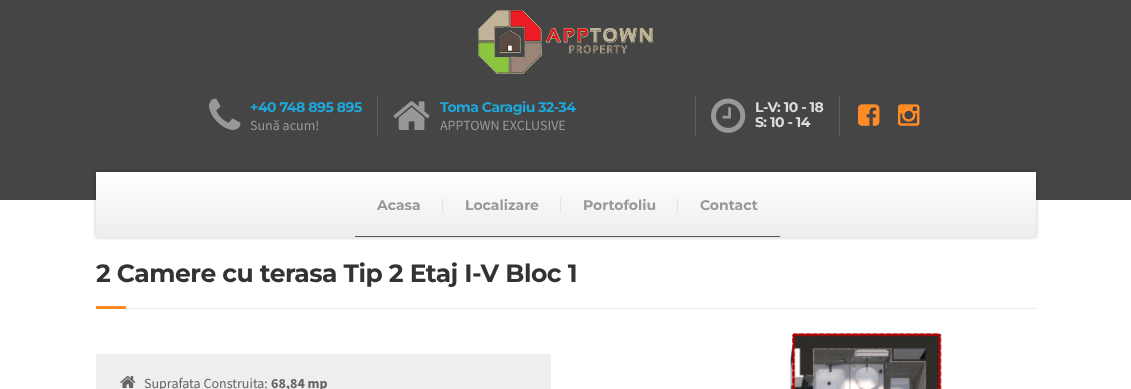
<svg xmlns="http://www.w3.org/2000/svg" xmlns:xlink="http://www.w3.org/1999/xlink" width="1131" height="389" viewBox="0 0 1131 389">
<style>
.cls-1{font:100 14px Montserrat;letter-spacing:-0.5px;fill:#1fa7da}
.cls-2{font:14px Source Sans Pro;fill:#989898}
.cls-3{font:100 14px Montserrat;letter-spacing:-0.5px;fill:#dddddd}
.cls-4{font:100 14px Montserrat;fill:#989898}
.cls-5{font:100 25px Montserrat;letter-spacing:-0.5px;fill:#333333}
.cls-6{font:14px Source Sans Pro;fill:#666666}
.cls-7{font:bold 14px Source Sans Pro;fill:#666666}
</style>
<defs>
<linearGradient id="g1" gradientUnits="userSpaceOnUse" x1="566" y1="172" x2="566" y2="237"><stop offset="0" stop-color="#ffffff"/><stop offset="1" stop-color="#ededed"/></linearGradient>
<linearGradient id="g2" gradientUnits="userSpaceOnUse" x1="566" y1="172" x2="566" y2="237"><stop offset="0" stop-color="#ebebeb"/><stop offset="1" stop-color="#dadada"/></linearGradient>
</defs>
<rect width="100%" height="100%" fill="#ffffff"/>
<rect fill="#454545" x="0" y="0" width="1131" height="200"/>
<image xlink:href="image0.png" x="478" y="10" width="175" height="64"/>
<rect fill="#5b5b5b" x="377" y="96" width="1" height="40"/>
<image xlink:href="image1.png" x="209" y="98" width="32" height="32"/>
<rect fill="#5b5b5b" x="695" y="96" width="1" height="40"/>
<image xlink:href="image2.png" x="393" y="101" width="37" height="29"/>
<rect fill="#5b5b5b" x="839" y="96" width="1" height="40"/>
<image xlink:href="image3.png" x="711" y="98" width="35" height="35"/>
<image xlink:href="image4.png" x="858" y="104" width="22" height="22"/>
<image xlink:href="image5.png" x="898" y="104" width="22" height="22"/>
<rect fill="#000000" fill-opacity="0.25" filter="blur(2px)" x="96" y="172" width="940" height="65"/>
<rect fill="url(#g1)" x="96" y="172" width="940" height="65"/>
<rect fill="url(#g2)" x="677" y="198" width="1" height="15"/>
<rect fill="url(#g2)" x="560" y="198" width="1" height="15"/>
<rect fill="url(#g2)" x="442" y="198" width="1" height="15"/>
<rect fill="#585858" x="355" y="236" width="425" height="1"/>
<rect fill="#ebebeb" x="126" y="308" width="910" height="1"/>
<rect fill="#ff8b26" x="96" y="306" width="30" height="3"/>
<rect fill="#eeeeee" x="96" y="354" width="455" height="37" rx="2"/>
<image xlink:href="image6.png" x="120" y="376" width="16" height="12"/>
<image xlink:href="image7.png" x="790" y="333" width="152" height="56"/>
<text class="cls-1" x="250" y="112">+40 748 895 895</text>
<text class="cls-2" x="250" y="130">Sună acum!</text>
<text class="cls-1" x="440" y="112">Toma Caragiu 32-34</text>
<text class="cls-2" x="440" y="130">APPTOWN EXCLUSIVE</text>
<text class="cls-3"><tspan x="755" y="112">L-V: 10 - 18</tspan><tspan x="755" y="127">S: 10 - 14</tspan></text>
<text class="cls-4" x="377" y="210">Acasa</text>
<text class="cls-4" x="465" y="210">Localizare</text>
<text class="cls-4" x="583" y="210">Portofoliu</text>
<text class="cls-4" x="700" y="210">Contact</text>
<text class="cls-5" x="96" y="282">2 Camere cu terasa Tip 2 Etaj I-V Bloc 1</text>
<text class="cls-6" x="144" y="388">Suprafata Construita:</text>
<text class="cls-7" x="271" y="388">68,84 mp</text>
</svg>
